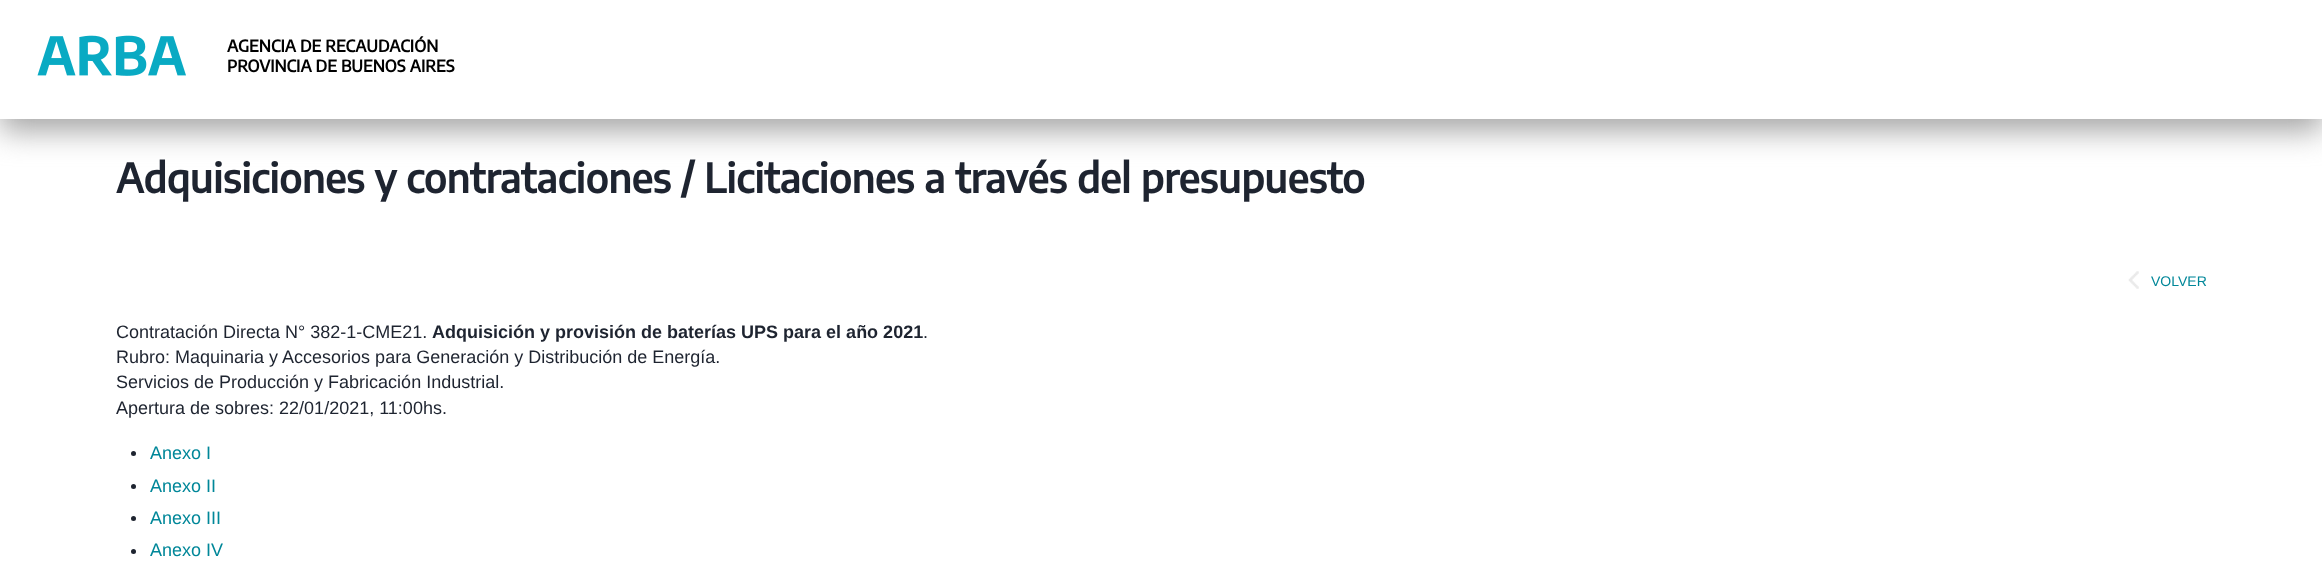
<svg xmlns="http://www.w3.org/2000/svg" xmlns:xlink="http://www.w3.org/1999/xlink" width="2322" height="573" viewBox="0 0 2322 573">
<style>
.cls-1{font:bold 16.25px Encode Sans;fill:#000000}
.cls-2{font:bold 40px Encode Sans;fill:#1e2430}
.cls-3{font:14px Liberation Sans;fill:#008799}
.cls-4{font:18px Liberation Sans;fill:#1e2430}
.cls-5{font:bold 18px Liberation Sans;fill:#1e2430}
.cls-6{font:18px Liberation Sans;fill:#008799}
</style>
<rect width="100%" height="100%" fill="#ffffff"/>
<rect fill="#a5a5a5" filter="blur(15px)" x="0" y="13" width="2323" height="118"/>
<rect fill="#ffffff" x="0" y="0" width="2322" height="119"/>
<image xlink:href="image0.png" x="37" y="35" width="149" height="41"/>
<image xlink:href="image1.png" x="2128" y="271" width="11" height="18"/>
<circle fill="#1e2430" cx="133.5" cy="453.5" r="2.5"/>
<circle fill="#1e2430" cx="133.5" cy="486.5" r="2.5"/>
<circle fill="#1e2430" cx="133.5" cy="518.5" r="2.5"/>
<circle fill="#1e2430" cx="133.5" cy="551.5" r="2.5"/>
<text class="cls-1"><tspan x="227" y="52">AGENCIA DE RECAUDACIÓN</tspan><tspan x="227" y="72">PROVINCIA DE BUENOS AIRES</tspan></text>
<text class="cls-2" x="116" y="193">Adquisiciones y contrataciones / Licitaciones a través del presupuesto</text>
<text class="cls-3" x="2151" y="286">VOLVER</text>
<text class="cls-4" x="116" y="338">Contratación Directa N° 382-1-CME21.</text>
<text class="cls-5" x="432" y="338">Adquisición y provisión de baterías UPS para el año 2021</text>
<text class="cls-4" x="923" y="338">.</text>
<text class="cls-4"><tspan x="116" y="363">Rubro: Maquinaria y Accesorios para Generación y Distribución de Energía.</tspan><tspan x="116" y="388">Servicios de Producción y Fabricación Industrial.</tspan><tspan x="116" y="414">Apertura de sobres: 22/01/2021, 11:00hs.</tspan></text>
<text class="cls-6"><tspan x="150" y="459">Anexo I</tspan><tspan x="150" y="492">Anexo II</tspan><tspan x="150" y="524">Anexo III</tspan><tspan x="150" y="556">Anexo IV</tspan></text>
</svg>
